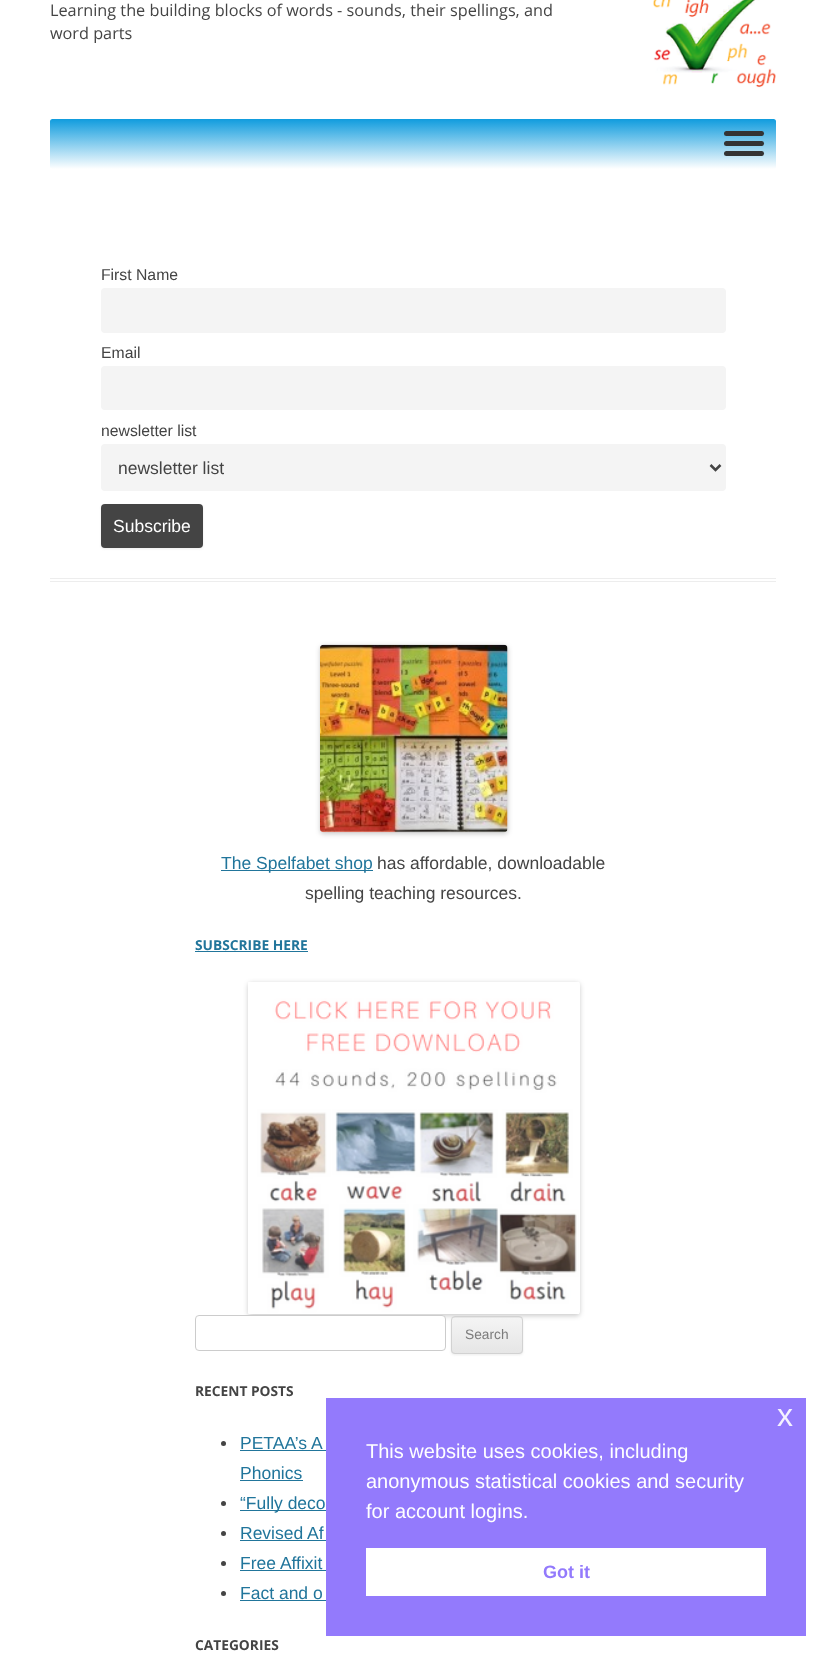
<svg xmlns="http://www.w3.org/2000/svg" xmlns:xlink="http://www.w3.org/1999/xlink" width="826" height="1656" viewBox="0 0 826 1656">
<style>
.cls-1{font:16.25px Open Sans;fill:#444444}
.cls-2{font:15.75px Liberation Sans;fill:#444444}
.cls-3{font:17.5px Liberation Sans;fill:#444444}
.cls-4{font:17.5px Liberation Sans;fill:#ffffff}
.cls-5{font:17.5px Liberation Sans;fill:#21759b}
.cls-6{font:bold 13.75px Open Sans;fill:#21759b}
.cls-7{font:13.75px Liberation Sans;fill:#7c7c7c}
.cls-8{font:bold 13.75px Open Sans;fill:#444444}
.cls-9{font:32px Liberation Sans;fill:#f4f2ff}
.cls-10{font:20px Liberation Sans;fill:#ffffff}
.cls-11{font:bold 18px Liberation Sans;fill:#937afc}
</style>
<defs>
<linearGradient id="g1" gradientUnits="userSpaceOnUse" x1="413" y1="119" x2="413" y2="169"><stop offset="0" stop-color="#109cde"/><stop offset="1" stop-color="#ffffff"/></linearGradient>
<clipPath id="clip1"><rect x="451" y="1316" width="72" height="38" rx="4"/></clipPath>
<linearGradient id="g2" gradientUnits="userSpaceOnUse" x1="487" y1="1318" x2="487" y2="1353"><stop offset="0" stop-color="#f4f4f4"/><stop offset="1" stop-color="#e6e6e6"/></linearGradient>
</defs>
<rect width="100%" height="100%" fill="#ffffff"/>
<image xlink:href="image0.png" x="653" y="0" width="123" height="88"/>
<rect fill="url(#g1)" x="50" y="119" width="726" height="50" rx="2.5"/>
<rect fill="#333333" x="724" y="131" width="40" height="5" rx="2.5"/>
<rect fill="#333333" x="724" y="141" width="40" height="5" rx="2.5"/>
<rect fill="#333333" x="724" y="151" width="40" height="5" rx="2.5"/>
<rect fill="#ededed" x="50" y="578" width="726" height="1"/>
<rect fill="#ededed" x="50" y="581" width="726" height="1"/>
<rect fill="#f4f4f4" x="101" y="288" width="625" height="45" rx="4"/>
<rect fill="#f4f4f4" x="101" y="366" width="625" height="44" rx="4"/>
<rect fill="#f4f4f4" x="101" y="444" width="625" height="47" rx="4"/>
<path fill="none" stroke="#444444" stroke-width="2.5" d="M710.5 465L715.5 470L720.5 465"/>
<rect fill="#404040" fill-opacity="0.1" filter="blur(1px)" x="101" y="505" width="102" height="44" rx="4"/>
<rect fill="#444444" x="101" y="504" width="102" height="44" rx="4"/>
<rect fill="#000000" fill-opacity="0.2" filter="blur(2.5px)" x="320" y="646" width="188" height="188" rx="4"/>
<image xlink:href="image1.png" x="320" y="644" width="188" height="189"/>
<rect fill="#21759b" x="221" y="870" width="152" height="1"/>
<rect fill="#21759b" x="195" y="951" width="113" height="1"/>
<rect fill="#000000" fill-opacity="0.2" filter="blur(2.5px)" x="248" y="983" width="332" height="333" rx="4"/>
<image xlink:href="image2.png" x="248" y="982" width="332" height="332"/>
<rect fill="#ffffff" stroke="#cccccc" x="195.5" y="1315.5" width="250" height="35" rx="3.5"/>
<rect fill="#404040" fill-opacity="0.1" filter="blur(1px)" x="451" y="1318" width="72" height="37" rx="4"/>
<rect fill="#e6e6e6" x="451" y="1316" width="72" height="38" rx="4"/>
<g clip-path="url(#clip1)">
<rect fill="url(#g2)" x="451" y="1318" width="72" height="35"/>
</g>
<rect fill="none" stroke="#d2d2d2" x="451.5" y="1316.5" width="71" height="37" rx="3.5"/>
<circle fill="#444444" cx="223.5" cy="1443.5" r="2.5"/>
<rect fill="#21759b" x="240" y="1450" width="86" height="1"/>
<rect fill="#21759b" x="240" y="1480" width="63" height="1"/>
<circle fill="#444444" cx="223.5" cy="1503.5" r="2.5"/>
<rect fill="#21759b" x="240" y="1510" width="86" height="1"/>
<circle fill="#444444" cx="223.5" cy="1533.5" r="2.5"/>
<rect fill="#21759b" x="240" y="1540" width="86" height="1"/>
<circle fill="#444444" cx="223.5" cy="1563.5" r="2.5"/>
<rect fill="#21759b" x="240" y="1570" width="86" height="1"/>
<circle fill="#444444" cx="223.5" cy="1593.5" r="2.5"/>
<rect fill="#21759b" x="240" y="1600" width="86" height="1"/>
<rect fill="#937afc" x="326" y="1398" width="480" height="238"/>
<rect fill="#ffffff" x="366" y="1548" width="400" height="48"/>
<text class="cls-1"><tspan x="50" y="16">Learning the building blocks of words - sounds, their spellings, and</tspan><tspan x="50" y="39">word parts</tspan></text>
<text class="cls-2" x="101" y="280">First Name</text>
<text class="cls-2" x="101" y="358">Email</text>
<text class="cls-2" x="101" y="436">newsletter list</text>
<text class="cls-3" x="118" y="474">newsletter list</text>
<text class="cls-4" x="113" y="532">Subscribe</text>
<text class="cls-5" x="221" y="869">The Spelfabet shop</text>
<text class="cls-3" x="377" y="869">has affordable, downloadable</text>
<text class="cls-3" x="305" y="899">spelling teaching resources.</text>
<text class="cls-6" x="195" y="950">SUBSCRIBE HERE</text>
<text class="cls-7" x="465" y="1339">Search</text>
<text class="cls-8" x="195" y="1396">RECENT POSTS</text>
<text class="cls-5"><tspan x="240" y="1449">PETAA’s A</tspan><tspan x="240" y="1479">Phonics</tspan><tspan x="240" y="1509">“Fully deco</tspan><tspan x="240" y="1539">Revised Af</tspan><tspan x="240" y="1569">Free Affixit</tspan><tspan x="240" y="1599">Fact and o</tspan></text>
<text class="cls-8" x="195" y="1650">CATEGORIES</text>
<text class="cls-9" x="777" y="1426">x</text>
<text class="cls-10"><tspan x="366" y="1458">This website uses cookies, including</tspan><tspan x="366" y="1488">anonymous statistical cookies and security</tspan><tspan x="366" y="1518">for account logins.</tspan></text>
<text class="cls-11" x="543" y="1578">Got it</text>
</svg>
